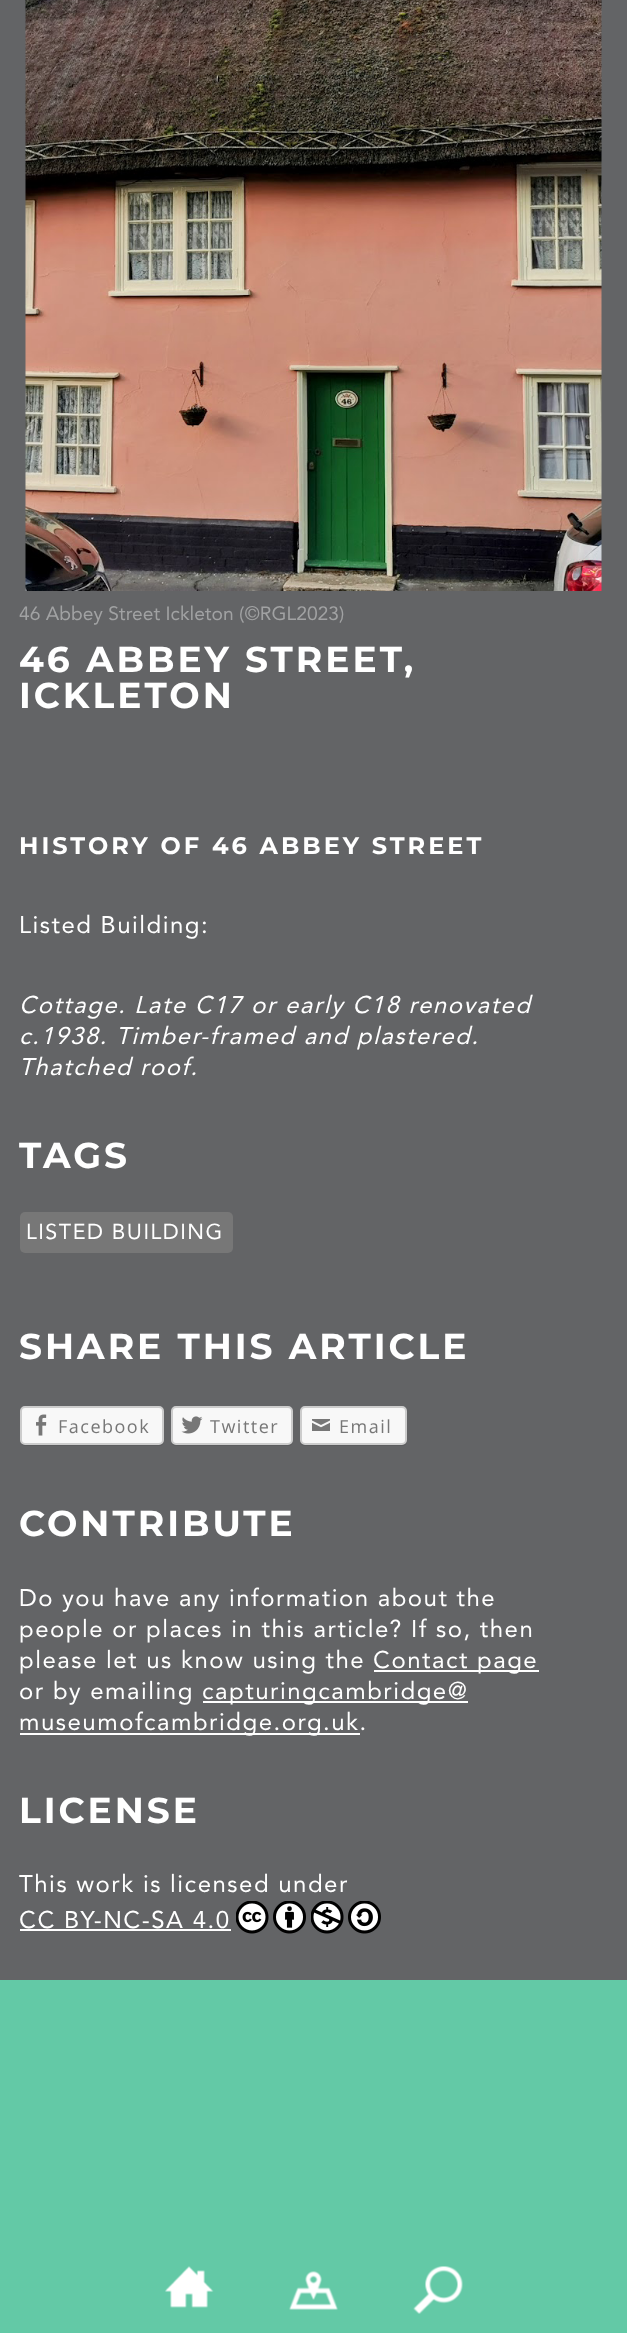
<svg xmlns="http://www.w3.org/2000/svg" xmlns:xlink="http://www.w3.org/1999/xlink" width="627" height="2333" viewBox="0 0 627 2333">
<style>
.cls-1{font:19.25px Avenir;fill:#a1a2a3}
.cls-2{font:bold 36px Montserrat;letter-spacing:3px;fill:#ffffff}
.cls-3{font:bold 24px Montserrat;letter-spacing:3px;fill:#ffffff}
.cls-4{font:24px Avenir;letter-spacing:1.5px;fill:#ffffff}
.cls-5{font:italic 24px Avenir;letter-spacing:1.5px;fill:#ffffff}
.cls-6{font:21.5px Avenir;letter-spacing:1.5px;fill:#ffffff}
.cls-7{font:18px Open Sans;letter-spacing:1.5px;fill:#777777}
</style>
<rect width="100%" height="100%" fill="#63c9a6"/>
<rect fill="#636466" x="0" y="0" width="627" height="1980"/>
<image xlink:href="image0.png" x="25" y="0" width="577" height="591"/>
<rect fill="#777777" x="20" y="1212" width="213" height="41" rx="5"/>
<path fill="#5b5c5e" d="M20 1442C21 1444 23 1446 25 1446H159C162 1446 164 1444 164 1441V1412L163 1410L164 1435C164 1438 164 1444 159 1444H24C22 1444 21 1444 20 1442Z"/>
<rect fill="#f8f8f8" stroke="#cccccc" stroke-width="2" x="21" y="1407" width="142" height="37" rx="4"/>
<image xlink:href="image1.png" x="36" y="1414" width="11" height="22"/>
<path fill="#5b5c5e" d="M171 1440V1441C171 1444 173 1446 176 1446H288C291 1446 293 1444 293 1441V1412L292 1410V1435C292 1438 293 1444 288 1444H194C185 1444 171 1448 171 1440Z"/>
<rect fill="#f8f8f8" stroke="#cccccc" stroke-width="2" x="172" y="1407" width="120" height="37" rx="4"/>
<image xlink:href="image2.png" x="181" y="1416" width="22" height="18"/>
<path fill="#5b5c5e" d="M300 1440V1441C300 1444 302 1446 305 1446H402C405 1446 407 1444 407 1441V1412L406 1410V1435C406 1438 407 1444 402 1444H321C313 1444 300 1447 300 1440Z"/>
<rect fill="#f8f8f8" stroke="#cccccc" stroke-width="2" x="301" y="1407" width="105" height="37" rx="4"/>
<image xlink:href="image3.png" x="312" y="1419" width="18" height="12"/>
<rect fill="#ffffff" x="374" y="1670" width="165" height="2"/>
<rect fill="#ffffff" x="203" y="1701" width="265" height="2"/>
<rect fill="#ffffff" x="20" y="1733" width="340" height="2"/>
<rect fill="#ffffff" x="20" y="1929" width="211" height="2"/>
<image xlink:href="image4.png" x="236" y="1901" width="33" height="33"/>
<image xlink:href="image5.png" x="273" y="1901" width="33" height="33"/>
<image xlink:href="image6.png" x="311" y="1901" width="33" height="33"/>
<image xlink:href="image7.png" x="348" y="1901" width="33" height="33"/>
<image xlink:href="image8.png" x="165" y="2266" width="49" height="42"/>
<image xlink:href="image9.png" x="289" y="2271" width="49" height="39"/>
<image xlink:href="image10.png" x="413" y="2266" width="50" height="48"/>
<text class="cls-1" x="19" y="620">46 Abbey Street Ickleton (©RGL2023)</text>
<text class="cls-2"><tspan x="19" y="672">46 ABBEY STREET,</tspan><tspan x="19" y="708">ICKLETON</tspan></text>
<text class="cls-3" x="19" y="854">HISTORY OF 46 ABBEY STREET</text>
<text class="cls-4" x="19" y="933">Listed Building:</text>
<text class="cls-5"><tspan x="19" y="1013">Cottage. Late C17 or early C18 renovated</tspan><tspan x="19" y="1044">c.1938. Timber-framed and plastered.</tspan><tspan x="19" y="1075">Thatched roof.</tspan></text>
<text class="cls-2" x="19" y="1168">TAGS</text>
<text class="cls-6" x="26" y="1239">LISTED BUILDING</text>
<text class="cls-2" x="19" y="1359">SHARE THIS ARTICLE</text>
<text class="cls-7" x="58" y="1433">Facebook</text>
<text class="cls-7" x="210" y="1433">Twitter</text>
<text class="cls-7" x="339" y="1433">Email</text>
<text class="cls-2" x="19" y="1536">CONTRIBUTE</text>
<text class="cls-4"><tspan x="19" y="1606">Do you have any information about the</tspan><tspan x="19" y="1637">people or places in this article? If so, then</tspan><tspan x="19" y="1668">please let us know using the</tspan></text>
<text class="cls-4" x="373" y="1668">Contact page</text>
<text class="cls-4" x="19" y="1699">or by emailing</text>
<text class="cls-4" x="202" y="1699">capturingcambridge@</text>
<text class="cls-4" x="19" y="1730">museumofcambridge.org.uk.</text>
<text class="cls-2" x="19" y="1823">LICENSE</text>
<text class="cls-4"><tspan x="19" y="1892">This work is licensed under</tspan><tspan x="19" y="1928">CC BY-NC-SA 4.0</tspan></text>
</svg>
